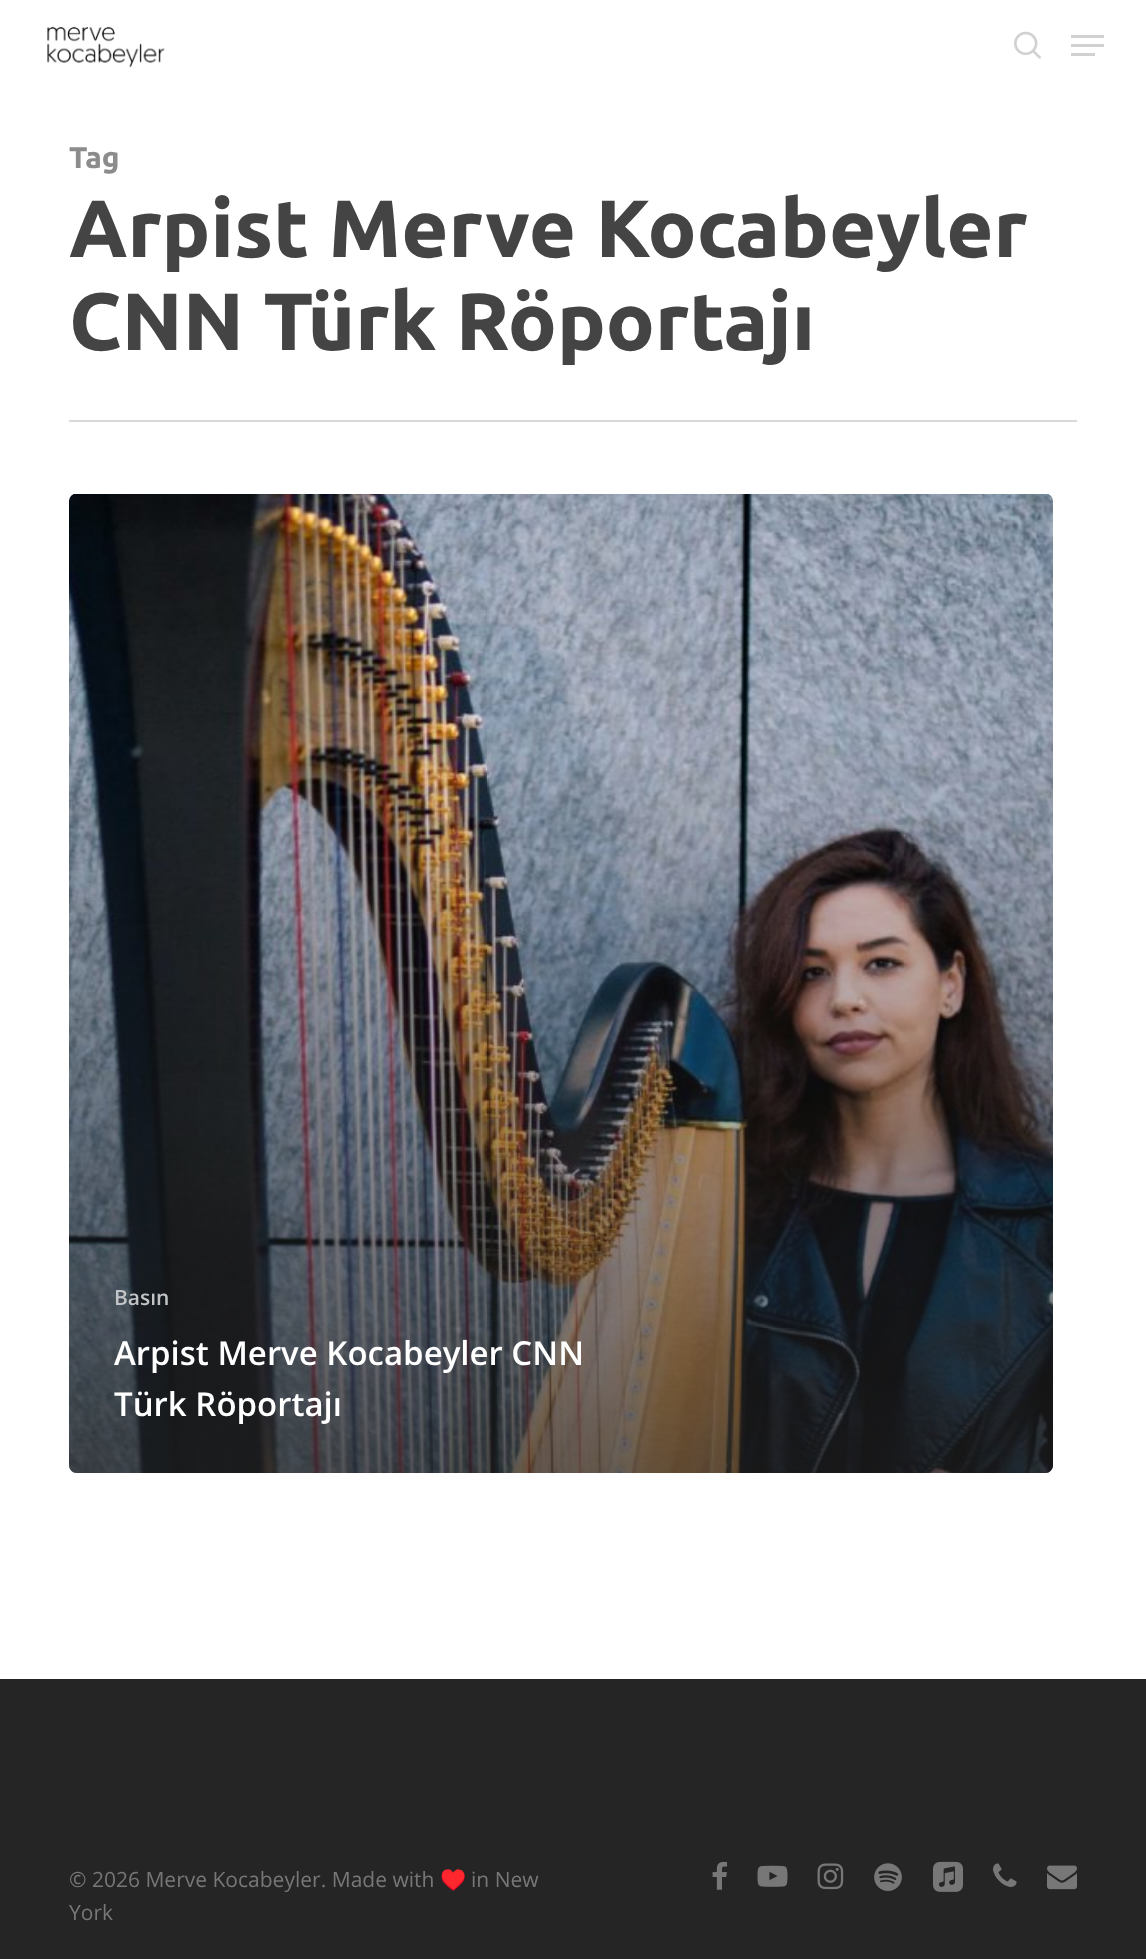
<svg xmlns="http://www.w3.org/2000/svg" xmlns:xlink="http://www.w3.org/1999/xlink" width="1146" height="1959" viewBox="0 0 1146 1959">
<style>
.cls-1{font:bold 30px Ubuntu;fill:#8c8c8c}
.cls-2{font:bold 81px Ubuntu;fill:#444444}
.cls-3{font:600 21px Open Sans;fill:#c2c4c6}
.cls-4{font:600 33px Open Sans;fill:#ffffff}
.cls-5{font:21px Open Sans;fill:#777777}
.cls-6{font:21px Noto Color Emoji;fill:#777777}
</style>
<defs>
<linearGradient id="g1" gradientUnits="userSpaceOnUse" x1="563" y1="740" x2="563" y2="1478"><stop offset="0" stop-color="#232323" stop-opacity="0"/><stop offset="1" stop-color="#232323" stop-opacity="0.65"/></linearGradient>
</defs>
<rect width="100%" height="100%" fill="#ffffff"/>
<image xlink:href="image0.png" x="47" y="26" width="118" height="42"/>
<image xlink:href="image1.png" x="1014" y="31" width="27" height="28"/>
<rect fill="#d1d1d1" x="1071" y="35" width="33" height="3"/>
<rect fill="#d1d1d1" x="1071" y="53" width="24" height="3"/>
<rect fill="#d1d1d1" x="1071" y="44" width="33" height="3"/>
<rect fill="#d9d9d9" x="69" y="420" width="1008" height="2"/>
<image xlink:href="image2.png" x="69" y="494" width="984" height="979"/>
<path fill="url(#g1)" d="M69 740H1053V1465C1053 1469.5 1049.5 1473 1045 1473H77C72.5 1473 69 1469.5 69 1465Z"/>
<rect fill="#252525" x="0" y="1679" width="1146" height="280"/>
<image xlink:href="image3.png" x="712" y="1861" width="16" height="29"/>
<image xlink:href="image4.png" x="757" y="1865" width="31" height="22"/>
<image xlink:href="image5.png" x="817" y="1863" width="27" height="27"/>
<image xlink:href="image6.png" x="874" y="1863" width="28" height="28"/>
<image xlink:href="image7.png" x="933" y="1861" width="30" height="31"/>
<image xlink:href="image8.png" x="993" y="1863" width="24" height="24"/>
<image xlink:href="image9.png" x="1047" y="1865" width="30" height="25"/>
<text class="cls-1" x="69" y="168">Tag</text>
<text class="cls-2"><tspan x="69" y="257">Arpist Merve Kocabeyler</tspan><tspan x="69" y="350">CNN Türk Röportajı</tspan></text>
<text class="cls-3" x="114" y="1305">Basın</text>
<text class="cls-4"><tspan x="114" y="1365">Arpist Merve Kocabeyler CNN</tspan><tspan x="114" y="1416">Türk Röportajı</tspan></text>
<text class="cls-5" x="69" y="1887">© 2026 Merve Kocabeyler. Made with</text>
<text class="cls-6" x="440" y="1887">♥️</text>
<text class="cls-5" x="471" y="1887">in New</text>
<text class="cls-5" x="69" y="1920">York</text>
</svg>
